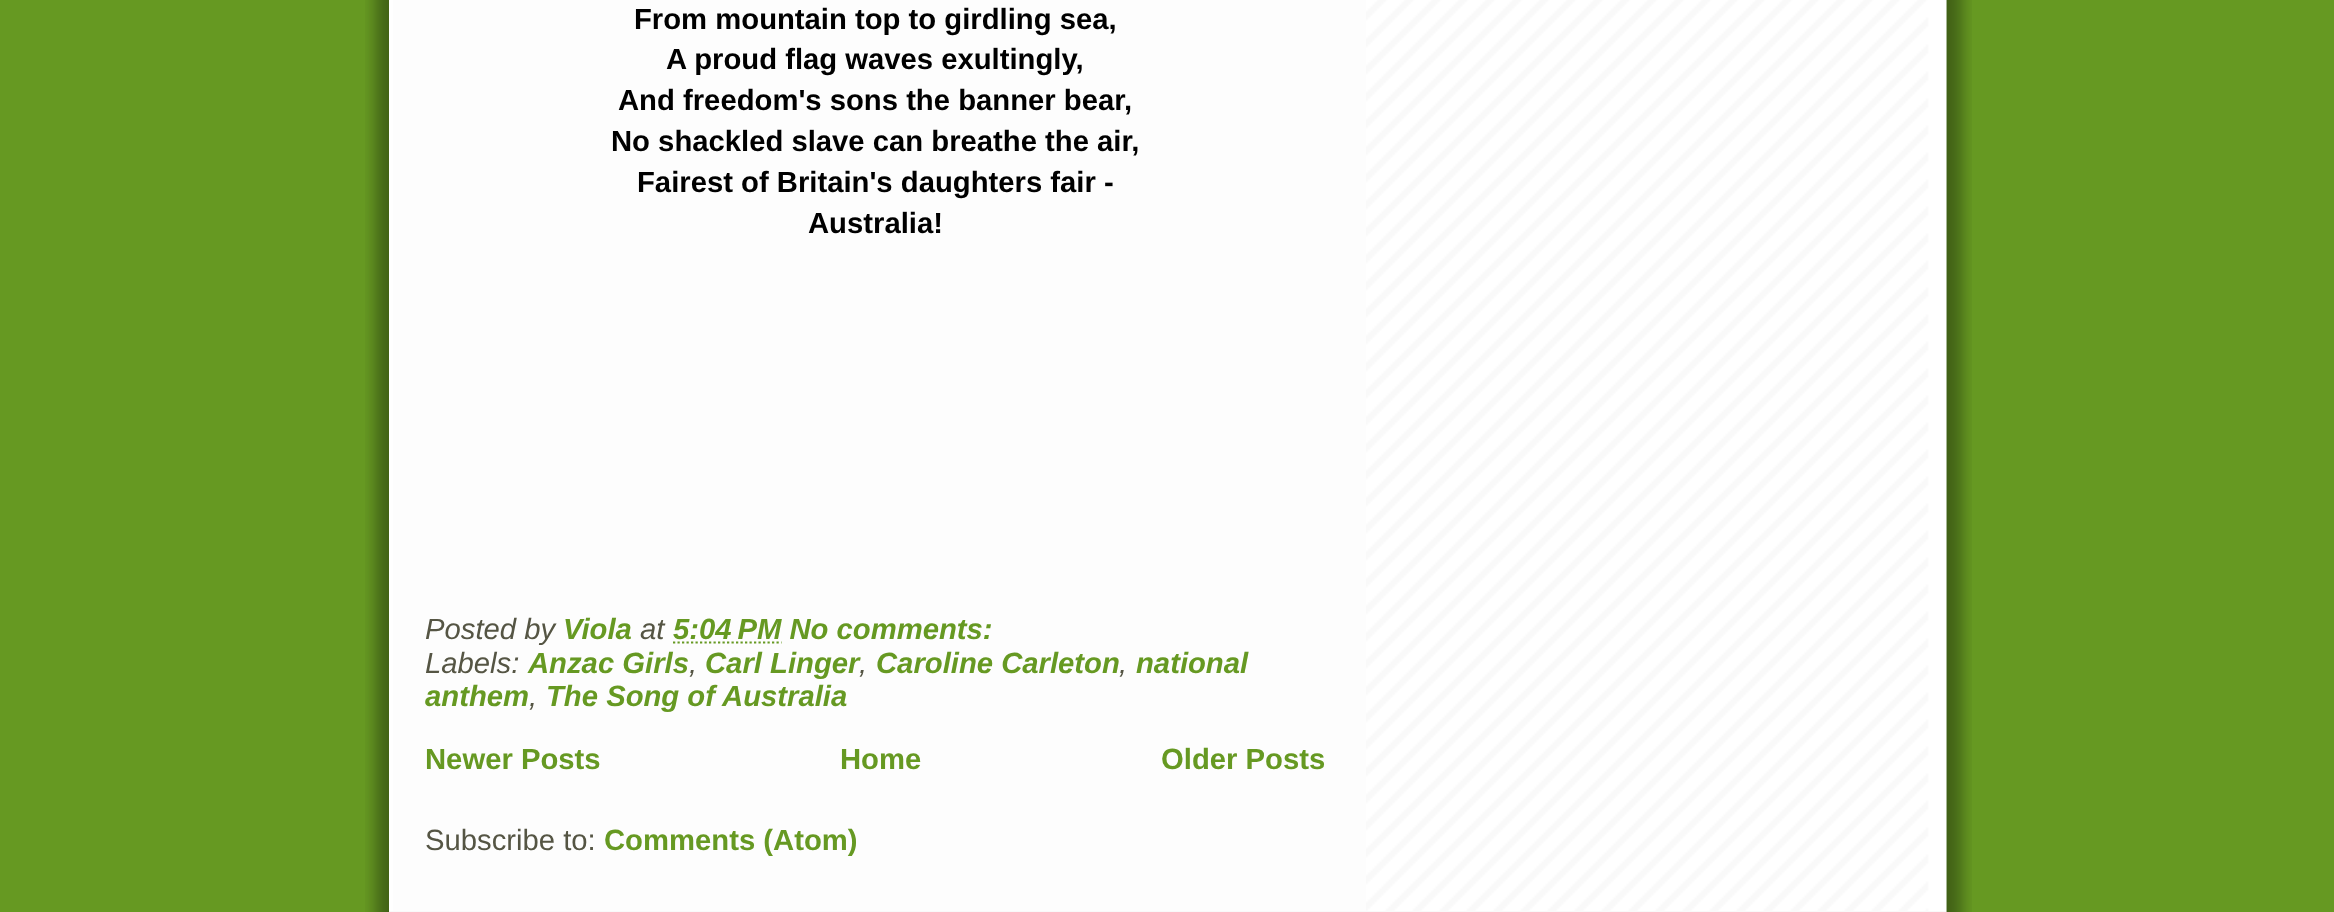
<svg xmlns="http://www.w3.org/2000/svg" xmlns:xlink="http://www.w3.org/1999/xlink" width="2334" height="912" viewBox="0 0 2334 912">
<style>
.cls-1{font:bold 29.25px Liberation Sans;fill:#000000}
.cls-2{font:italic 29.25px Liberation Sans;fill:#555544}
.cls-3{font:italic bold 29.25px Liberation Sans;fill:#669922}
.cls-4{font:bold 29.25px Liberation Sans;fill:#669922}
.cls-5{font:29.25px Liberation Sans;fill:#555544}
</style>
<rect width="100%" height="100%" fill="#669922"/>
<image xlink:href="image0.png" x="365" y="0" width="1607" height="912"/>
<rect fill="#ffffff" x="389" y="0" width="4" height="911"/>
<image xlink:href="image1.png" x="1366" y="0" width="581" height="912"/>
<path fill="none" stroke="#669922" stroke-width="2.2" stroke-dasharray="2.25 2.25" d="M673 642.5H781.5"/>
<rect fill="#f9f9f9" x="389" y="911" width="1557" height="1"/>
<text class="cls-1" x="634" y="29">From mountain top to girdling sea,</text>
<text class="cls-1" x="666" y="69">A proud flag waves exultingly,</text>
<text class="cls-1" x="618" y="110">And freedom's sons the banner bear,</text>
<text class="cls-1" x="611" y="151">No shackled slave can breathe the air,</text>
<text class="cls-1" x="637" y="192">Fairest of Britain's daughters fair -</text>
<text class="cls-1" x="808" y="233">Australia!</text>
<text class="cls-2" x="425" y="639">Posted by</text>
<text class="cls-3" x="563" y="639">Viola</text>
<text class="cls-2" x="640" y="639">at</text>
<text class="cls-3" x="673" y="639">5:04 PM No comments:</text>
<text class="cls-2" x="425" y="673">Labels:</text>
<text class="cls-3" x="528" y="673">Anzac Girls</text>
<text class="cls-2" x="689" y="673">,</text>
<text class="cls-3" x="705" y="673">Carl Linger</text>
<text class="cls-2" x="859" y="673">,</text>
<text class="cls-3" x="876" y="673">Caroline Carleton</text>
<text class="cls-2" x="1119" y="673">,</text>
<text class="cls-3" x="1136" y="673">national</text>
<text class="cls-3" x="425" y="706">anthem</text>
<text class="cls-2" x="529" y="706">,</text>
<text class="cls-3" x="546" y="706">The Song of Australia</text>
<text class="cls-4" x="425" y="769">Newer Posts</text>
<text class="cls-4" x="840" y="769">Home</text>
<text class="cls-4" x="1161" y="769">Older Posts</text>
<text class="cls-5" x="425" y="850">Subscribe to:</text>
<text class="cls-4" x="604" y="850">Comments (Atom)</text>
</svg>
